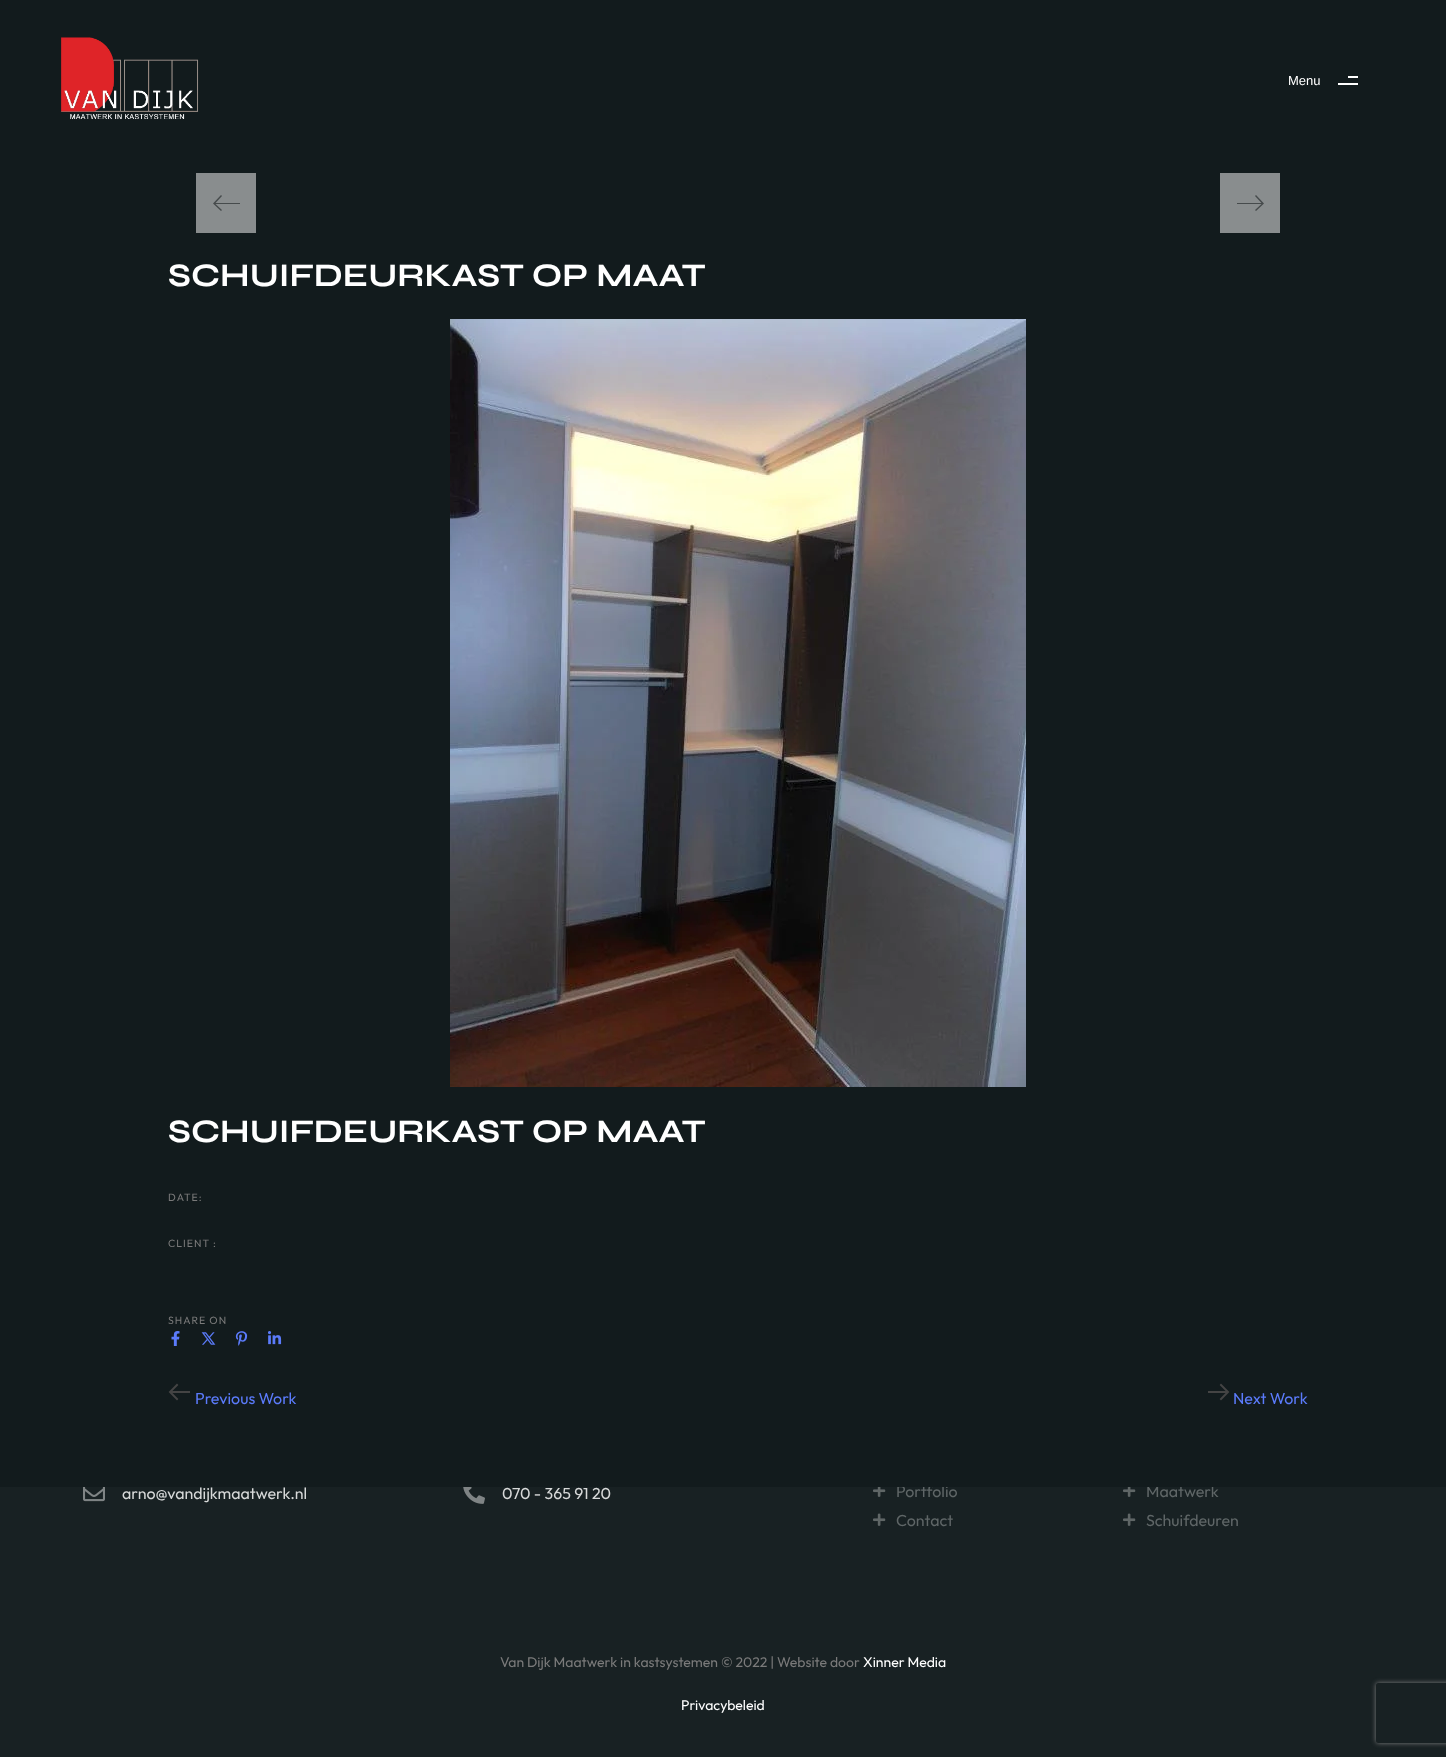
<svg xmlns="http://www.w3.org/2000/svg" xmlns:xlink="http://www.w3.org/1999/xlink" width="1446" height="1757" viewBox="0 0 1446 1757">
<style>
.cls-1{font:16px Outfit;fill:#d7d9d9}
.cls-2{font:16px Outfit;fill:#5f6667}
.cls-3{font:13px Liberation Sans;fill:#ffffff}
.cls-4{font:16px Outfit;fill:#5b7bfb}
.cls-5{font:10.5px Outfit;letter-spacing:1px;fill:#7a7a7a}
.cls-6{font:bold 33px Syne;fill:#ffffff}
.cls-7{font:14px Outfit;fill:#7a7a7a}
.cls-8{font:14px Outfit;fill:#ffffff}
</style>
<defs>
<clipPath id="clip1"><path d="M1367 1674H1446V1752H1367ZM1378 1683H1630C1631 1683 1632 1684 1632 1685V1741C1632 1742 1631 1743 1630 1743H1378C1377 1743 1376 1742 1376 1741V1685C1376 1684 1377 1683 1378 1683Z" clip-rule="evenodd"/></clipPath>
</defs>
<rect width="100%" height="100%" fill="#182123"/>
<image xlink:href="image6.png" x="83" y="1487" width="22" height="15"/>
<image xlink:href="image7.png" x="463" y="1487" width="22" height="17"/>
<image xlink:href="image8.png" x="873" y="1487" width="13" height="10"/>
<image xlink:href="image9.png" x="873" y="1513" width="13" height="13"/>
<image xlink:href="image8.png" x="1123" y="1487" width="13" height="10"/>
<image xlink:href="image9.png" x="1123" y="1513" width="13" height="13"/>
<g clip-path="url(#clip1)">
<rect fill="#808080" filter="blur(2.5px)" x="1376" y="1683" width="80" height="60" rx="2"/>
</g>
<text class="cls-1" x="122" y="1499">arno@vandijkmaatwerk.nl</text>
<text class="cls-1" x="502" y="1499">070 - 365 91 20</text>
<text class="cls-2"><tspan x="896" y="1497">Portfolio</tspan><tspan x="896" y="1526">Contact</tspan></text>
<text class="cls-2" x="1146" y="1497">Maatwerk</text>
<rect fill="#121b1d" x="0" y="0" width="1446" height="1487"/>
<rect fill="#ffffff" x="1338" y="83" width="20" height="2"/>
<rect fill="#ffffff" x="1348" y="76" width="10" height="2"/>
<text class="cls-3" x="1288" y="85">Menu</text>
<image xlink:href="image0.png" x="61" y="37" width="138" height="82"/>
<rect fill="#898d8e" x="1220" y="173" width="60" height="60"/>
<path fill="#464b4c" d="M1261.5 203H1237V204H1261.5L1255 210L1256 211L1264 203.5L1256 195L1255 196Z"/>
<rect fill="#898d8e" x="196" y="173" width="60" height="60"/>
<path fill="#464b4c" d="M215.5 203H240V204H215.5L222 210L221 211L213 203.5L221 195L222 196Z"/>
<rect fill="#444444" x="1208" y="1391" width="20" height="2"/>
<path fill="none" stroke="#444444" stroke-width="2" stroke-linecap="square" d="M1221 1385L1228 1392L1221 1399"/>
<rect fill="#444444" x="170" y="1391" width="20" height="2"/>
<path fill="none" stroke="#444444" stroke-width="2" stroke-linecap="square" d="M177 1399L170 1392L177 1385"/>
<image xlink:href="image5.png" x="268" y="1331" width="14" height="14"/>
<image xlink:href="image4.png" x="235" y="1331" width="13" height="15"/>
<image xlink:href="image3.png" x="201" y="1332" width="15" height="13"/>
<image xlink:href="image2.png" x="171" y="1331" width="9" height="15"/>
<text class="cls-4" x="1233" y="1404">Next Work</text>
<text class="cls-4" x="195" y="1404">Previous Work</text>
<text class="cls-5" x="168" y="1324">SHARE ON</text>
<text class="cls-5" x="168" y="1247">CLIENT :</text>
<text class="cls-5" x="168" y="1201">DATE:</text>
<text class="cls-6" x="168" y="1142">SCHUIFDEURKAST OP MAAT</text>
<image xlink:href="image1.png" x="450" y="319" width="576" height="768"/>
<text class="cls-6" x="168" y="286">SCHUIFDEURKAST OP MAAT</text>
<text class="cls-2" x="1146" y="1526">Schuifdeuren</text>
<text class="cls-7" x="500" y="1667">Van Dijk Maatwerk in kastsystemen © 2022 | Website door</text>
<text class="cls-8" x="863" y="1667">Xinner Media</text>
<text class="cls-8" x="681" y="1710">Privacybeleid</text>
</svg>
